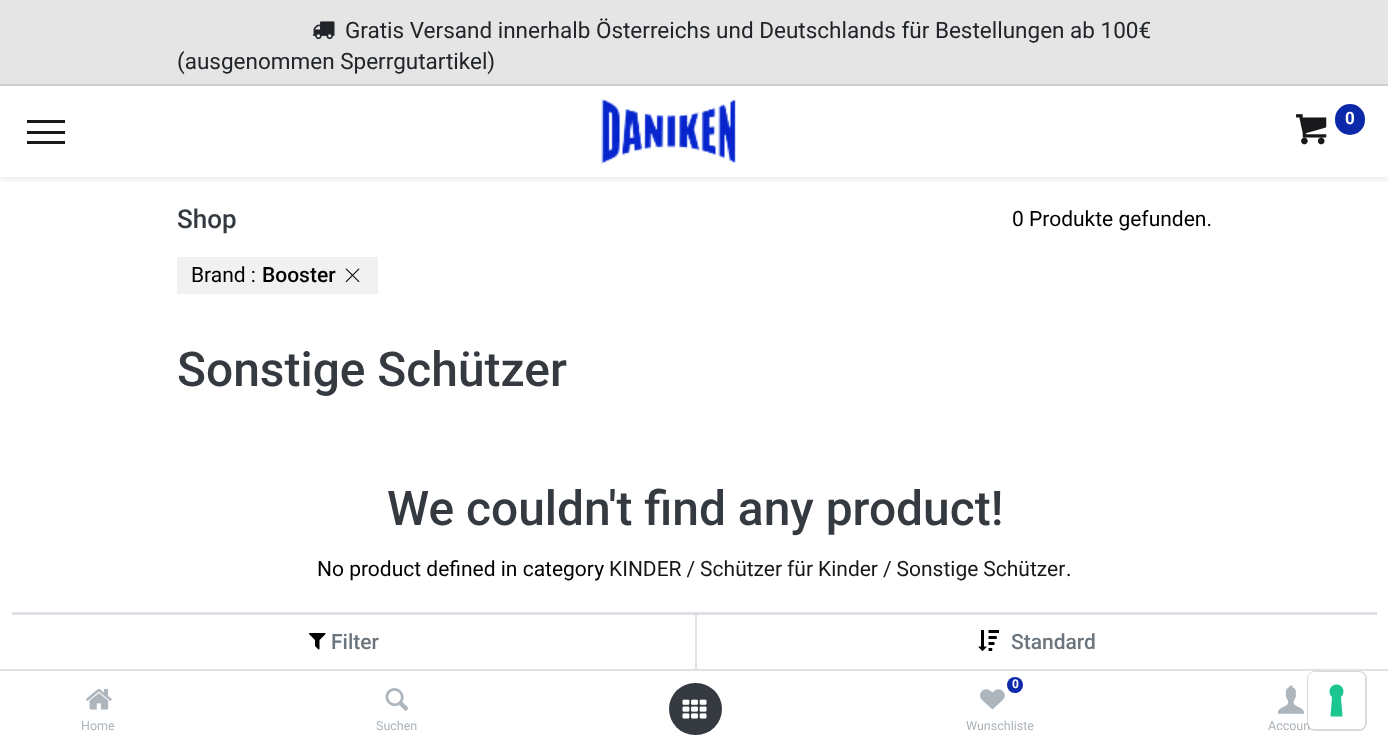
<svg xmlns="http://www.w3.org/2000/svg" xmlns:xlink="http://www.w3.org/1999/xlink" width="1388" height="752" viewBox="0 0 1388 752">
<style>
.cls-1{font:22.5px Roboto;fill:#212529}
.cls-2{font:bold 17px Roboto;fill:#ffffff}
.cls-3{font:500 26px Roboto;fill:#343a40}
.cls-4{font:21px Roboto;fill:#000000}
.cls-5{font:500 21px Roboto;fill:#000000}
.cls-6{font:500 47.9px Roboto;fill:#343a40}
.cls-7{font:21px Roboto;fill:#18181b}
.cls-8{font:500 21px Roboto;fill:#6c757d}
.cls-9{font:12.5px Roboto;fill:#adb5bd}
.cls-10{font:bold 12px Roboto;fill:#ffffff}
</style>
<defs>
<clipPath id="clip1"><rect x="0" y="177" width="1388" height="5"/></clipPath>
</defs>
<rect width="100%" height="100%" fill="#ffffff"/>
<rect fill="#e5e5e5" x="0" y="0" width="1388" height="84"/>
<rect fill="#cdcece" x="0" y="84" width="1388" height="2"/>
<image xlink:href="image0.png" x="312" y="21" width="23" height="19"/>
<g clip-path="url(#clip1)">
<rect fill="#000000" fill-opacity="0.07" filter="blur(3px)" x="0" y="89" width="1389" height="91"/>
</g>
<image xlink:href="image1.png" x="601" y="98" width="135" height="66"/>
<image xlink:href="image2.png" x="1296" y="114" width="31" height="31"/>
<rect fill="#0c29aa" x="1335" y="104" width="30" height="31" rx="15"/>
<rect fill="#18181b" x="27" y="120" width="38" height="3"/>
<rect fill="#18181b" x="27" y="131" width="38" height="3"/>
<rect fill="#18181b" x="27" y="141" width="38" height="3"/>
<rect fill="#f1f1f1" x="177" y="257" width="201" height="37"/>
<image xlink:href="image3.png" x="345" y="268" width="15" height="15"/>
<rect fill="#dee2e6" x="12" y="612" width="1365" height="3"/>
<rect fill="#dee2e6" x="0" y="669" width="1388" height="2"/>
<image xlink:href="image4.png" x="309" y="633" width="17" height="17"/>
<rect fill="#dee2e6" x="695" y="615" width="2" height="54"/>
<image xlink:href="image5.png" x="978" y="630" width="21" height="21"/>
<image xlink:href="image6.png" x="86" y="688" width="26" height="22"/>
<image xlink:href="image7.png" x="385" y="688" width="24" height="23"/>
<rect fill="#343a40" x="669" y="683" width="53" height="52" rx="26"/>
<image xlink:href="image8.png" x="682" y="699" width="25" height="20"/>
<circle fill="#0c29aa" cx="1015" cy="685" r="8"/>
<image xlink:href="image9.png" x="980" y="689" width="25" height="21"/>
<image xlink:href="image10.png" x="1277" y="685" width="27" height="29"/>
<text class="cls-1" x="345" y="38">Gratis Versand innerhalb Österreichs und Deutschlands für Bestellungen ab 100€</text>
<text class="cls-1" x="177" y="69">(ausgenommen Sperrgutartikel)</text>
<text class="cls-2" x="1345" y="124">0</text>
<text class="cls-3" x="177" y="228">Shop</text>
<text class="cls-4" x="1012" y="226">0 Produkte gefunden.</text>
<text class="cls-4" x="191" y="282">Brand :</text>
<text class="cls-5" x="262" y="282">Booster</text>
<text class="cls-6" x="177" y="386">Sonstige Schützer</text>
<text class="cls-6" x="387" y="525">We couldn't find any product!</text>
<text class="cls-4" x="317" y="576">No product defined in category</text>
<text class="cls-7" x="609" y="576" word-spacing="-0.25">KINDER / Schützer für Kinder / Sonstige Schützer</text>
<text class="cls-4" x="1066" y="576">.</text>
<text class="cls-8" x="331" y="649">Filter</text>
<text class="cls-8" x="1011" y="649">Standard</text>
<text class="cls-9" x="81" y="730">Home</text>
<text class="cls-9" x="376" y="730">Suchen</text>
<text class="cls-10" x="1012" y="688">0</text>
<text class="cls-9" x="966" y="730">Wunschliste</text>
<text class="cls-9" x="1268" y="730">Accoun</text>
<rect fill="none" stroke="#000000" stroke-opacity="0.15" stroke-width="2" x="1308" y="672" width="58" height="58" rx="7"/>
<rect fill="#ffffff" x="1308" y="672" width="57" height="57" rx="6"/>
<path fill="#1cc691" fill-rule="evenodd" d="M1336.5 684.5C1343 684.5 1346 692.5 1341 697L1342.5 716.5H1330.5L1332 697C1327 692.5 1330 684.5 1336.5 684.5Z"/>
</svg>
